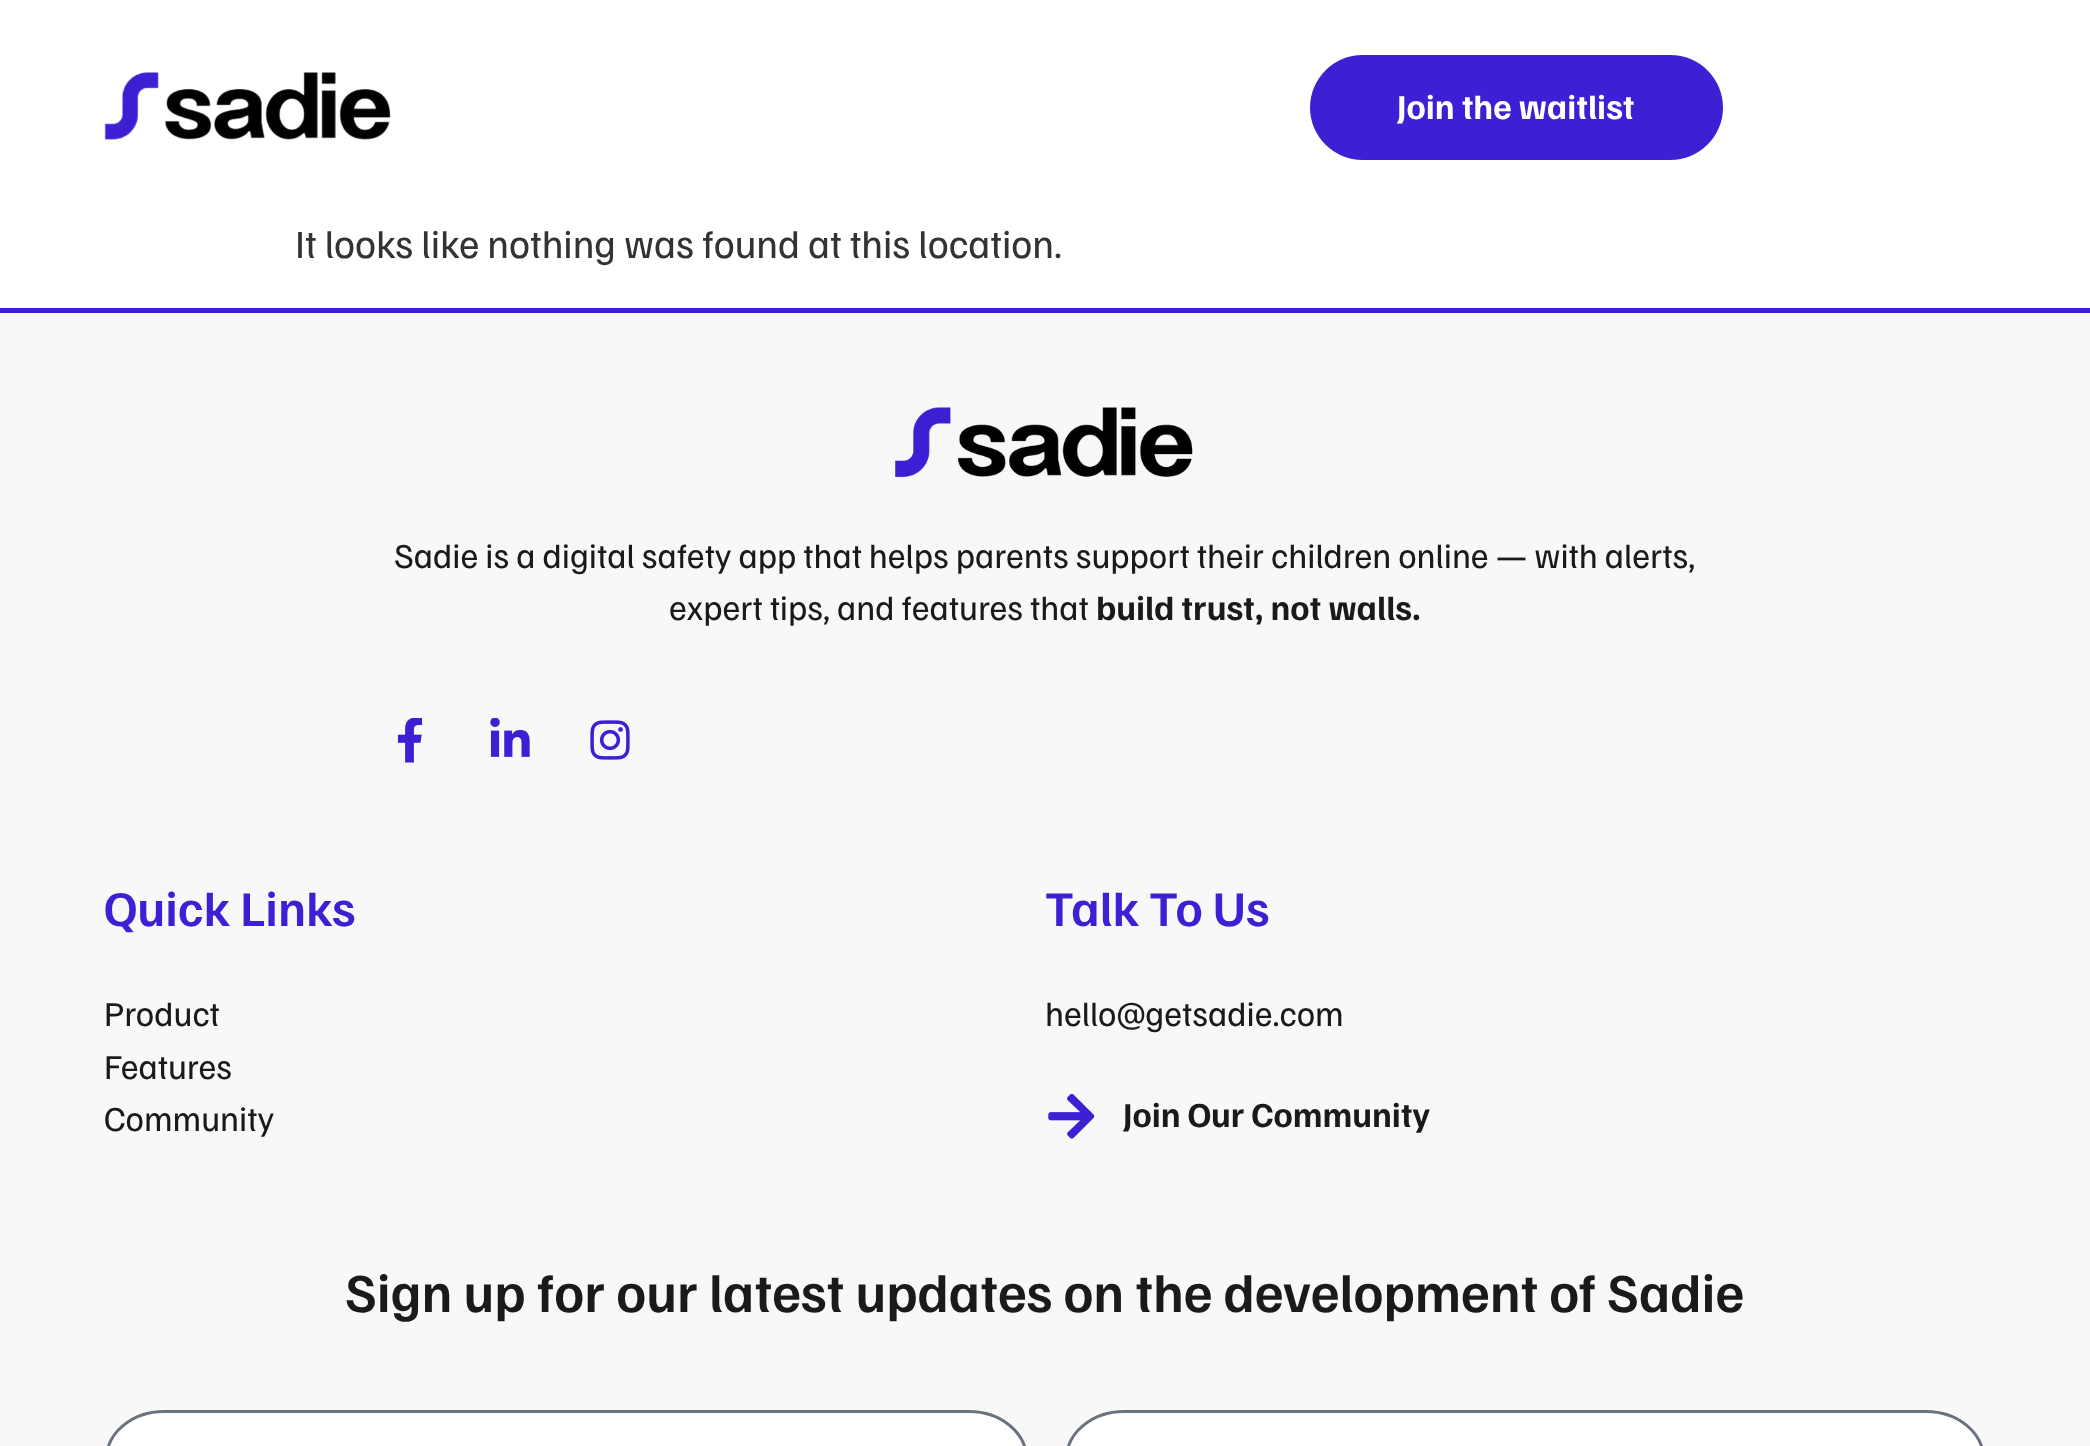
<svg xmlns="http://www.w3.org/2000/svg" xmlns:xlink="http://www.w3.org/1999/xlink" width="2090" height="1446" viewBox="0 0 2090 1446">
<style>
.cls-1{font:bold 35px Familjen Grotesk;fill:#ffffff}
.cls-2{font:40px Familjen Grotesk;fill:#333333}
.cls-3{font:35px Familjen Grotesk;fill:#1a1a1a}
.cls-4{font:bold 35px Familjen Grotesk;fill:#1a1a1a}
.cls-5{font:600 50px Familjen Grotesk;fill:#3e1fd3}
.cls-6{font:600 55px Familjen Grotesk;fill:#1a1a1a}
</style>
<rect width="100%" height="100%" fill="#ffffff"/>
<image xlink:href="image0.png" x="104" y="72" width="287" height="68"/>
<rect fill="#3e1fd3" x="1310" y="55" width="413" height="105" rx="52.5"/>
<rect fill="#f8f8f8" x="0" y="313" width="2090" height="1133"/>
<rect fill="#3e1fd3" x="0" y="308" width="2090" height="5"/>
<image xlink:href="image1.png" x="895" y="407" width="298" height="71"/>
<image xlink:href="image2.png" x="397" y="718" width="26" height="45"/>
<image xlink:href="image3.png" x="490" y="718" width="40" height="39"/>
<image xlink:href="image4.png" x="590" y="720" width="40" height="40"/>
<image xlink:href="image5.png" x="1048" y="1093" width="47" height="46"/>
<rect fill="#ffffff" stroke="#69727d" stroke-width="3" x="106.5" y="1411.5" width="920" height="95" rx="57.5"/>
<rect fill="#ffffff" stroke="#69727d" stroke-width="3" x="1066.5" y="1411.5" width="917" height="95" rx="57.5"/>
<text class="cls-1" x="1397" y="119">Join the waitlist</text>
<text class="cls-2" x="295" y="258">It looks like nothing was found at this location.</text>
<text class="cls-3" x="394" y="568">Sadie is a digital safety app that helps parents support their children online — with alerts,</text>
<text class="cls-3" x="669" y="620">expert tips, and features that</text>
<text class="cls-4" x="1096" y="620">build trust, not walls.</text>
<text class="cls-5" x="104" y="926">Quick Links</text>
<text class="cls-3"><tspan x="104" y="1026">Product</tspan><tspan x="104" y="1079">Features</tspan><tspan x="104" y="1131">Community</tspan></text>
<text class="cls-5" x="1045" y="926">Talk To Us</text>
<text class="cls-3" x="1045" y="1026">hello@getsadie.com</text>
<text class="cls-4" x="1123" y="1127">Join Our Community</text>
<text class="cls-6" x="345" y="1312">Sign up for our latest updates on the development of Sadie</text>
</svg>
